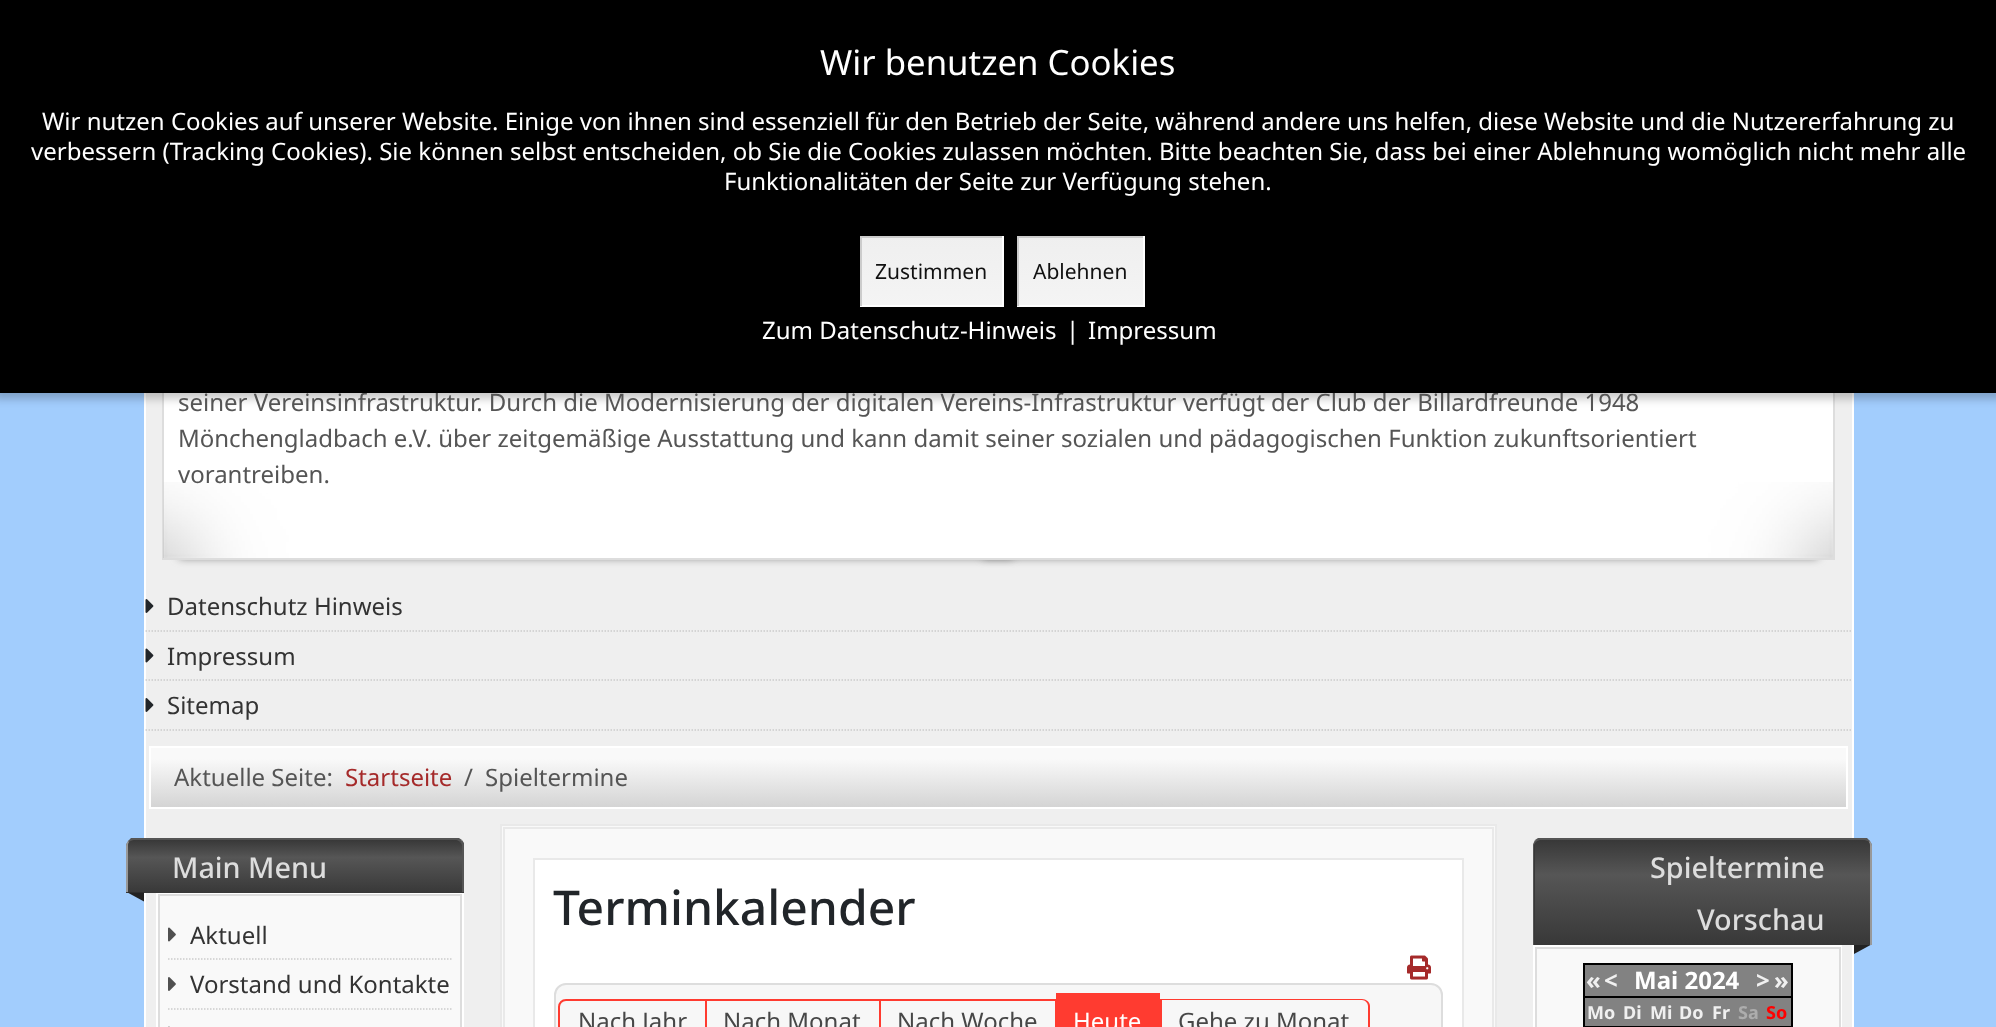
<svg xmlns="http://www.w3.org/2000/svg" xmlns:xlink="http://www.w3.org/1999/xlink" width="1996" height="1027" viewBox="0 0 1996 1027">
<style>
.cls-1{font:24px Noto Sans;fill:#555555}
.cls-2{font:24px Noto Sans;fill:#ffffff}
.cls-3{font:21px Noto Sans;fill:#111111}
.cls-4{font:34.75px Noto Sans;fill:#ffffff}
.cls-5{font:24px Noto Sans;fill:#333333}
.cls-6{font:24px Noto Sans;fill:#a52a2a}
.cls-7{font:500 28.75px Noto Sans;fill:#dddddd}
.cls-8{font:500 48px Noto Sans;fill:#212529}
.cls-9{font:24px Noto Sans;fill:#474747}
.cls-10{font:bold 24px Noto Sans;fill:#f0f0f0}
.cls-11{font:bold 24px Noto Sans;fill:#ffffff}
.cls-12{font:bold 18px Noto Sans;fill:#f0f0f0}
.cls-13{font:bold 18px Noto Sans;fill:#adadad}
.cls-14{font:bold 18px Noto Sans;fill:#ff0000}
</style>
<defs>
<linearGradient id="g1" gradientUnits="userSpaceOnUse" x1="998" y1="747" x2="998" y2="807"><stop offset="0" stop-color="#f9f9f9"/><stop offset="0.2" stop-color="#f9f9f9"/><stop offset="1" stop-color="#d4d4d4"/></linearGradient>
<clipPath id="clip1"><path d="M134 839H456C460.5 839 464 842.5 464 847V893H126V847C126 842.5 129.5 839 134 839Z"/></clipPath>
<linearGradient id="g2" gradientUnits="userSpaceOnUse" x1="295" y1="840" x2="295" y2="893"><stop offset="0" stop-color="#383838"/><stop offset="0.33" stop-color="#565656"/><stop offset="1" stop-color="#383838"/></linearGradient>
<clipPath id="clip2"><path d="M1541 839H1864C1868.5 839 1872 842.5 1872 847V945H1533V847C1533 842.5 1536.5 839 1541 839Z"/></clipPath>
<linearGradient id="g3" gradientUnits="userSpaceOnUse" x1="1703" y1="840" x2="1703" y2="945"><stop offset="0" stop-color="#383838"/><stop offset="0.33" stop-color="#565656"/><stop offset="1" stop-color="#383838"/></linearGradient>
<linearGradient id="g4" gradientUnits="userSpaceOnUse" x1="1081" y1="237" x2="1081" y2="305"><stop offset="0" stop-color="#efefef"/><stop offset="1" stop-color="#f4f4f4"/></linearGradient>
<linearGradient id="g5" gradientUnits="userSpaceOnUse" x1="932" y1="237" x2="932" y2="305"><stop offset="0" stop-color="#efefef"/><stop offset="1" stop-color="#f4f4f4"/></linearGradient>
</defs>
<rect width="100%" height="100%" fill="#a2cdfd"/>
<rect fill="#efefef" x="146" y="393" width="1706" height="634"/>
<rect fill="none" stroke="#ffffff" stroke-width="2" x="145" y="16" width="1708" height="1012"/>
<rect fill="#787878" filter="blur(4px)" x="179" y="506" width="834" height="52"/>
<rect fill="#787878" filter="blur(4px)" x="983" y="506" width="835" height="52"/>
<rect fill="#ffffff" x="164" y="393" width="1669" height="165"/>
<rect fill="none" stroke="#dddddd" stroke-width="2" x="163" y="258" width="1671" height="301"/>
<rect fill="#000000" fill-opacity="0.21" filter="blur(4px)" x="-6" y="-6" width="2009" height="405"/>
<image xlink:href="image0.png" x="163" y="482" width="1670" height="76"/>
<image xlink:href="image1.png" x="145" y="599" width="9" height="14"/>
<path fill="none" stroke="#cccccc" stroke-width="1.5" stroke-dasharray="1.5 1.5" d="M145.5 631H1852.5"/>
<image xlink:href="image2.png" x="145" y="648" width="9" height="15"/>
<path fill="none" stroke="#cccccc" stroke-width="1.5" stroke-dasharray="1.5 1.5" d="M145.5 680H1852.5"/>
<image xlink:href="image1.png" x="145" y="698" width="9" height="14"/>
<path fill="none" stroke="#cccccc" stroke-width="1.5" stroke-dasharray="1.5 1.5" d="M145.5 730H1852.5"/>
<rect fill="url(#g1)" x="151" y="748" width="1695" height="59"/>
<rect fill="none" stroke="#ffffff" stroke-width="2" x="150" y="747" width="1697" height="61"/>
<path fill="#383838" d="M134 839H456C460.5 839 464 842.5 464 847V893H126V847C126 842.5 129.5 839 134 839Z"/>
<g clip-path="url(#clip1)">
<rect fill="url(#g2)" x="128" y="840" width="334" height="53"/>
</g>
<path fill="#555555" d="M134 840C132 840 130 841 129 842L128 841L131 838H459L462 840L460 842C459 841 458 840 456 840Z"/>
<path fill="#555555" d="M464 843V892H462V846C462 844 461 843 460 842L462 840Z"/>
<path fill="#999999" d="M126 846V892H128V846C128 845 128 843 129 842L128 841C127 842 126 844 126 846Z"/>
<path fill="#222222" d="M127.5 892.5H144V901.5Z"/>
<rect fill="none" stroke="#ffffff" stroke-width="2" x="157" y="894" width="306" height="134"/>
<rect fill="#f9f9f9" stroke="#dddddd" stroke-width="2" x="159" y="895" width="302" height="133"/>
<image xlink:href="image3.png" x="168" y="927" width="8" height="15"/>
<path fill="none" stroke="#cccccc" stroke-width="1.5" stroke-dasharray="1.5 1.5" d="M168 959H451.5"/>
<image xlink:href="image4.png" x="168" y="977" width="8" height="14"/>
<path fill="none" stroke="#cccccc" stroke-width="1.5" stroke-dasharray="1.5 1.5" d="M168 1009H451.5"/>
<image xlink:href="image5.png" x="168" y="1026" width="2" height="1"/>
<rect fill="#f9f9f9" stroke="#e9e9e9" stroke-width="2" x="501" y="825" width="995" height="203"/>
<rect fill="none" stroke="#e9e9e9" stroke-width="2" x="504" y="828" width="989" height="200"/>
<rect fill="#ffffff" stroke="#e9e9e9" stroke-width="2" x="534" y="859" width="929" height="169"/>
<image xlink:href="image6.png" x="1407" y="955" width="24" height="25"/>
<rect fill="#f7f7f7" stroke="#dddddd" stroke-width="2" x="555" y="984" width="887" height="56" rx="11"/>
<path fill="none" stroke="#ff3b30" stroke-width="2" d="M566 1000H706V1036H566C562 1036 559 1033 559 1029V1007C559 1003 562 1000 566 1000Z"/>
<rect fill="#ff3b30" x="705" y="999" width="176" height="2"/>
<rect fill="#ff3b30" x="879" y="999" width="2" height="28"/>
<rect fill="#ff3b30" x="879" y="999" width="177" height="2"/>
<rect fill="#ff3b30" x="1055" y="999" width="1" height="28"/>
<rect fill="#ff3b30" x="1160" y="999" width="2" height="28"/>
<rect fill="#ff3b30" x="1056" y="993" width="104" height="34"/>
<path fill="#ff3b30" fill-rule="evenodd" d="M1160 999H1362C1366 999 1370 1002 1370 1006V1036C1370 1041 1366 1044 1362 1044H1160ZM1160 1000H1362C1365 1000 1368 1003 1368 1006V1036C1368 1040 1365 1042 1362 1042H1160Z"/>
<path fill="#383838" d="M1541 839H1864C1868.5 839 1872 842.5 1872 847V945H1533V847C1533 842.5 1536.5 839 1541 839Z"/>
<g clip-path="url(#clip2)">
<rect fill="url(#g3)" x="1535" y="840" width="336" height="105"/>
</g>
<path fill="#555555" d="M1540 840C1539 840 1537 841 1536 842L1535 840L1538 838H1867L1870 841L1869 842C1868 841 1866 840 1864 840Z"/>
<path fill="#999999" d="M1870 945H1872V846C1872 844 1871 842 1870 841L1869 842C1870 843 1870 845 1870 846Z"/>
<path fill="#555555" d="M1533 945H1534V846C1534 844 1535 843 1536 842L1535 840C1534 842 1533 844 1533 846Z"/>
<path fill="#222222" d="M1854 945H1870.5L1854 954Z"/>
<rect fill="none" stroke="#ffffff" stroke-width="2" x="1534" y="946" width="307" height="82"/>
<rect fill="#f9f9f9" stroke="#dddddd" stroke-width="2" x="1536" y="948" width="304" height="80"/>
<rect fill="#828282" x="1585" y="965" width="206" height="31"/>
<rect fill="#000000" x="1583" y="963" width="210" height="2"/>
<rect fill="#000000" x="1791" y="963" width="2" height="33"/>
<rect fill="#000000" x="1583" y="963" width="2" height="33"/>
<rect fill="#000000" x="1583" y="996" width="210" height="2"/>
<rect fill="#000000" x="1791" y="996" width="2" height="31"/>
<rect fill="#000000" x="1583" y="996" width="2" height="31"/>
<rect fill="#828282" x="1585" y="998" width="206" height="28"/>
<rect fill="#000000" x="1583" y="1026" width="210" height="1"/>
<text class="cls-1" x="178" y="411">seiner Vereinsinfrastruktur. Durch die Modernisierung der digitalen Vereins-Infrastruktur verfügt der Club der Billardfreunde 1948</text>
<rect fill="#000000" x="0" y="0" width="1996" height="393"/>
<text class="cls-2" x="1088" y="339">Impressum</text>
<text class="cls-2" x="1066" y="339">|</text>
<text class="cls-2" x="762" y="339">Zum Datenschutz-Hinweis</text>
<rect fill="url(#g4)" x="1019" y="238" width="124" height="67"/>
<text class="cls-3" x="1033" y="279">Ablehnen</text>
<rect fill="#cccccc" x="1017" y="236" width="128" height="2"/>
<rect fill="#ffffff" x="1143" y="236" width="2" height="70"/>
<rect fill="#ffffff" x="1017" y="305" width="128" height="2"/>
<rect fill="#cccccc" x="1017" y="236" width="2" height="70"/>
<rect fill="url(#g5)" x="862" y="238" width="140" height="67"/>
<text class="cls-3" x="875" y="279">Zustimmen</text>
<rect fill="#cccccc" x="860" y="236" width="144" height="2"/>
<rect fill="#ffffff" x="1002" y="236" width="2" height="70"/>
<rect fill="#ffffff" x="860" y="305" width="144" height="2"/>
<rect fill="#cccccc" x="860" y="236" width="2" height="70"/>
<text class="cls-2" x="724" y="190">Funktionalitäten der Seite zur Verfügung stehen.</text>
<text class="cls-2" x="31" y="160">verbessern (Tracking Cookies). Sie können selbst entscheiden, ob Sie die Cookies zulassen möchten. Bitte beachten Sie, dass bei einer Ablehnung womöglich nicht mehr alle</text>
<text class="cls-2" x="42" y="130">Wir nutzen Cookies auf unserer Website. Einige von ihnen sind essenziell für den Betrieb der Seite, während andere uns helfen, diese Website und die Nutzererfahrung zu</text>
<text class="cls-4" x="820" y="75">Wir benutzen Cookies</text>
<text class="cls-1"><tspan x="178" y="447">Mönchengladbach e.V. über zeitgemäßige Ausstattung und kann damit seiner sozialen und pädagogischen Funktion zukunftsorientiert</tspan><tspan x="178" y="483">vorantreiben.</tspan></text>
<text class="cls-5" x="167" y="615">Datenschutz Hinweis</text>
<text class="cls-5" x="167" y="665">Impressum</text>
<text class="cls-5" x="167" y="714">Sitemap</text>
<text class="cls-1" x="174" y="786">Aktuelle Seite:</text>
<text class="cls-6" x="345" y="786">Startseite</text>
<text class="cls-1" x="464" y="786">/</text>
<text class="cls-1" x="485" y="786">Spieltermine</text>
<text class="cls-7" x="172" y="878">Main Menu</text>
<text class="cls-5" x="190" y="944">Aktuell</text>
<text class="cls-5" x="190" y="993">Vorstand und Kontakte</text>
<text class="cls-8" x="553" y="925">Terminkalender</text>
<text class="cls-9" x="578" y="1030">Nach Jahr</text>
<text class="cls-9" x="723" y="1030">Nach Monat</text>
<text class="cls-9" x="897" y="1030">Nach Woche</text>
<text class="cls-2" x="1073" y="1030">Heute</text>
<text class="cls-9" x="1178" y="1030">Gehe zu Monat</text>
<text class="cls-7" x="1650" y="878">Spieltermine</text>
<text class="cls-7" x="1697" y="930">Vorschau</text>
<text class="cls-10" x="1586" y="989">«</text>
<text class="cls-10" x="1604" y="989">&lt;</text>
<text class="cls-11" x="1634" y="989">Mai 2024</text>
<text class="cls-10" x="1756" y="989">&gt;</text>
<text class="cls-10" x="1774" y="989">»</text>
<text class="cls-12" x="1587" y="1019">Mo</text>
<text class="cls-12" x="1623" y="1019">Di</text>
<text class="cls-12" x="1650" y="1019">Mi</text>
<text class="cls-12" x="1679" y="1019">Do</text>
<text class="cls-12" x="1712" y="1019">Fr</text>
<text class="cls-13" x="1738" y="1019">Sa</text>
<text class="cls-14" x="1766" y="1019">So</text>
</svg>
